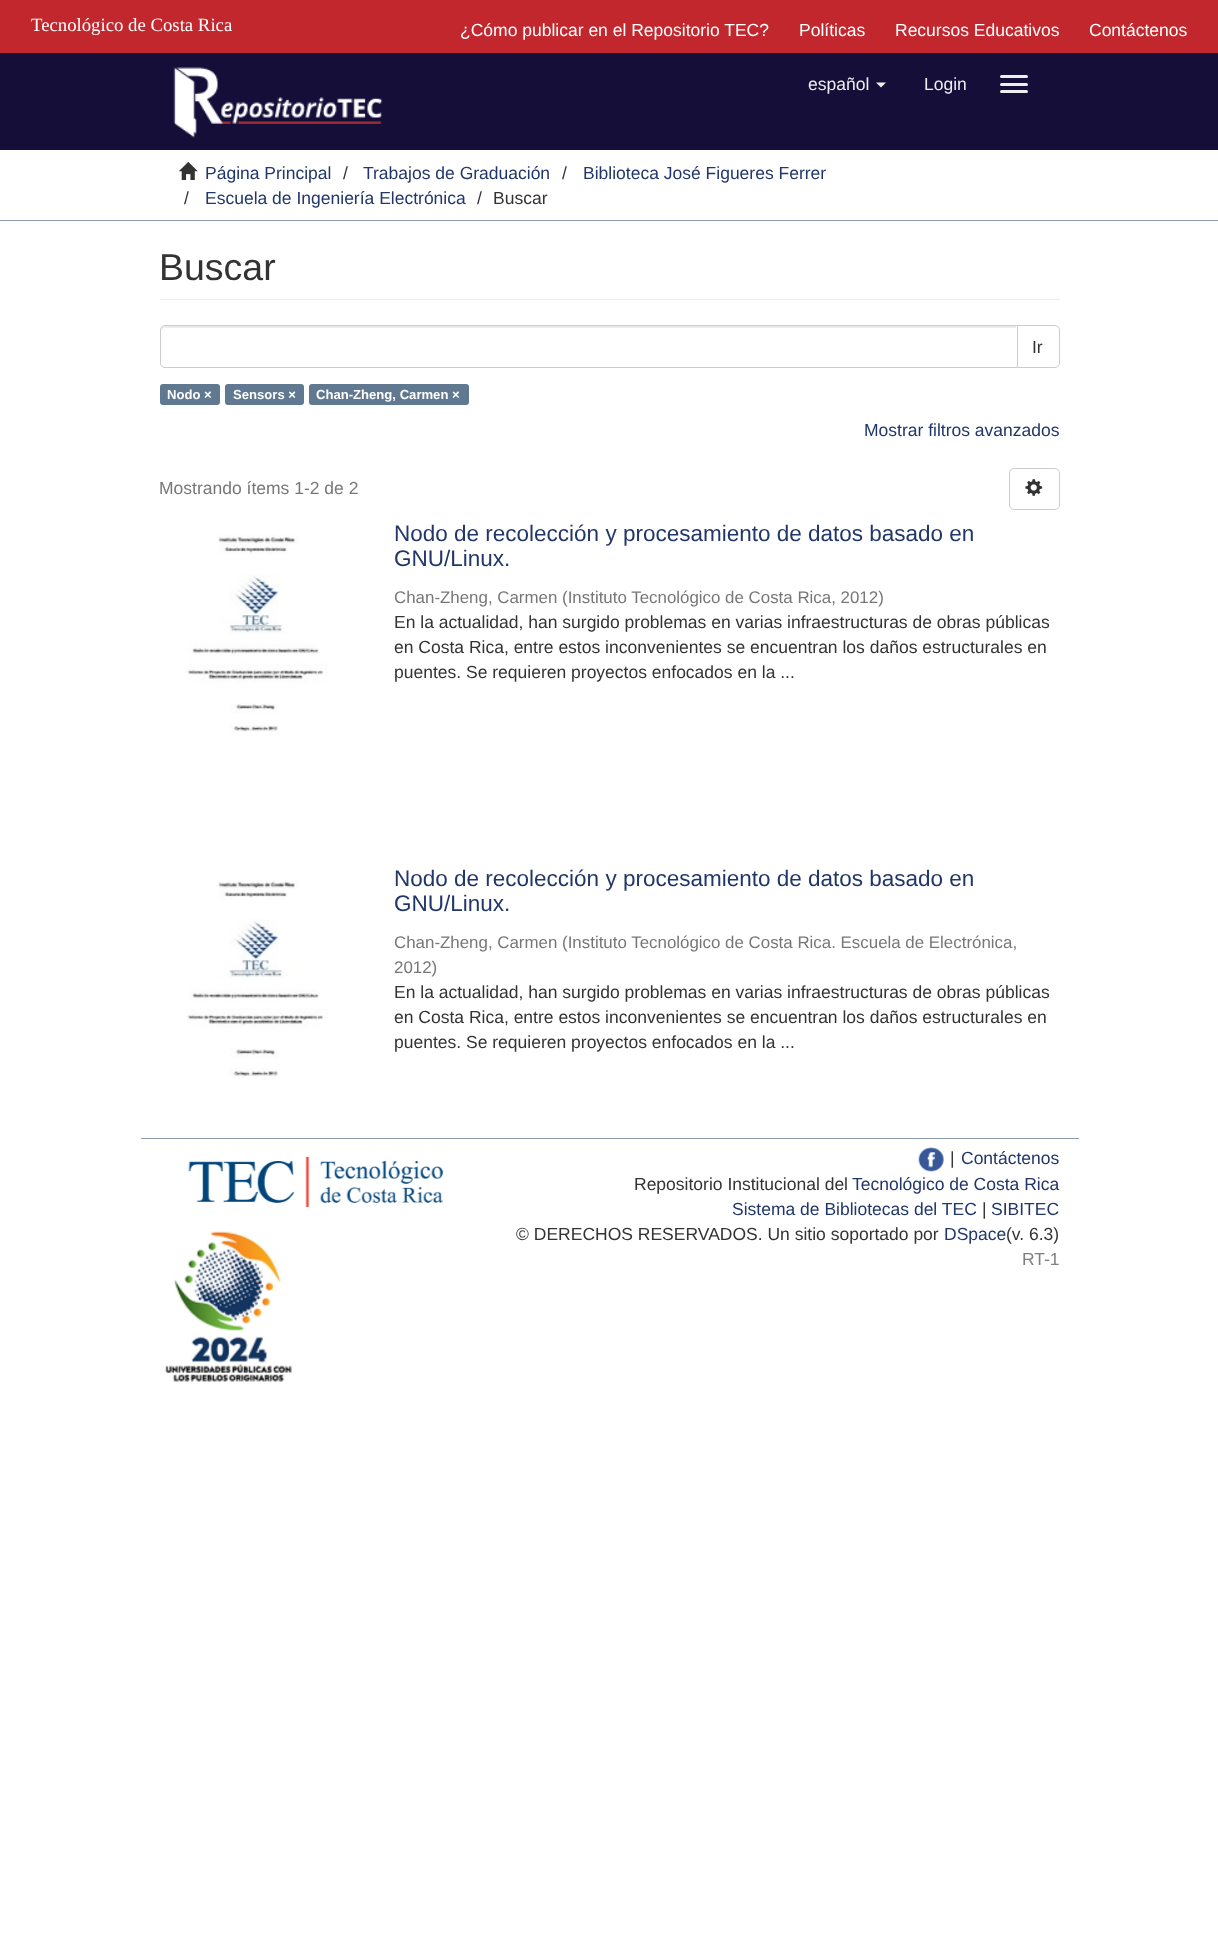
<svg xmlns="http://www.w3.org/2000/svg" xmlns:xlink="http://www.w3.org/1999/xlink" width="1218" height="1947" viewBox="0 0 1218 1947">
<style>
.cls-1{font:18.75px Liberation Serif;fill:#ffffff}
.cls-2{font:17.5px Liberation Sans;fill:#ffffff}
.cls-3{font:17.5px Liberation Sans;fill:#eeeeee}
.cls-4{font:17.5px Liberation Sans;fill:#213669}
.cls-5{font:17.5px Liberation Sans;fill:#333333}
.cls-6{font:37.5px Liberation Sans;fill:#333333}
.cls-7{font:bold 13.1px Liberation Sans;fill:#ffffff}
.cls-8{font:17.5px Liberation Sans;fill:#777777}
.cls-9{font:22.5px Liberation Sans;fill:#213669}
.cls-10{font:16.9px Liberation Sans;fill:#777777}
.cls-11{font:17.5px Liberation Sans;fill:#808080}
</style>
<rect width="100%" height="100%" fill="#ffffff"/>
<rect fill="#140e39" x="0" y="53" width="1218" height="97"/>
<rect fill="#c1272d" x="0" y="0" width="1218" height="53"/>
<image xlink:href="image0.png" x="173" y="67" width="210" height="71"/>
<path fill="#eeeeee" d="M876 82.5H886L881 87.5Z"/>
<rect fill="#eeeeee" x="1000" y="75" width="28" height="3" rx="1.5"/>
<rect fill="#eeeeee" x="1000" y="83" width="28" height="3" rx="1.5"/>
<rect fill="#eeeeee" x="1000" y="90" width="28" height="3" rx="1.5"/>
<rect fill="#8b9eb2" x="0" y="220" width="1218" height="1"/>
<image xlink:href="image1.png" x="178" y="161" width="20" height="19"/>
<rect fill="#eeeeee" x="160" y="299" width="900" height="1"/>
<path fill="none" stroke="#cccccc" d="M1016.5 325.5H1055C1057.5 325.5 1059.5 327.5 1059.5 330V363C1059.5 365.5 1057.5 367.5 1055 367.5H1016.5Z"/>
<path fill="#ffffff" d="M165 325H1018V368H165C162 368 160 366 160 363V330C160 327 162 325 165 325Z"/>
<path fill="#ececec" d="M165 328H1016V326H165C162 326 161 328 161 331C161 329 163 328 165 328Z"/>
<path fill="none" stroke="#cccccc" d="M165 325.5H1017.5V367.5H165C162.5 367.5 160.5 365.5 160.5 363V330C160.5 327.5 162.5 325.5 165 325.5Z"/>
<rect fill="#607890" x="160" y="384" width="60" height="21" rx="3"/>
<rect fill="#607890" x="225" y="384" width="79" height="21" rx="3"/>
<rect fill="#607890" x="309" y="384" width="160" height="21" rx="3"/>
<rect fill="none" stroke="#cccccc" x="1009.5" y="468.5" width="50" height="41" rx="4.5"/>
<image xlink:href="image2.png" x="1025" y="479" width="18" height="17"/>
<image xlink:href="image3.png" x="186" y="535" width="142" height="197"/>
<image xlink:href="image3.png" x="186" y="880" width="142" height="197"/>
<rect fill="#8b9eb2" x="141" y="1138" width="938" height="1"/>
<image xlink:href="image4.png" x="188" y="1156" width="256" height="51"/>
<image xlink:href="image5.png" x="165" y="1231" width="127" height="151"/>
<image xlink:href="image6.png" x="918" y="1147" width="26" height="25"/>
<text class="cls-1" x="31" y="31">Tecnológico de Costa Rica</text>
<text class="cls-2" x="460" y="36">¿Cómo publicar en el Repositorio TEC?</text>
<text class="cls-2" x="799" y="36">Políticas</text>
<text class="cls-2" x="895" y="36">Recursos Educativos</text>
<text class="cls-2" x="1089" y="36">Contáctenos</text>
<text class="cls-3" x="808" y="90">español</text>
<text class="cls-3" x="924" y="90">Login</text>
<text class="cls-4" x="205" y="179">Página Principal</text>
<text class="cls-5" x="343" y="179">/</text>
<text class="cls-4" x="363" y="179">Trabajos de Graduación</text>
<text class="cls-5" x="562" y="179">/</text>
<text class="cls-4" x="583" y="179">Biblioteca José Figueres Ferrer</text>
<text class="cls-5" x="184" y="204">/</text>
<text class="cls-4" x="205" y="204">Escuela de Ingeniería Electrónica</text>
<text class="cls-5" x="477" y="204">/</text>
<text class="cls-5" x="493" y="204">Buscar</text>
<text class="cls-6" x="159" y="280">Buscar</text>
<text class="cls-5" x="1032" y="353">Ir</text>
<text class="cls-7" x="167" y="399">Nodo ×</text>
<text class="cls-7" x="233" y="399">Sensors ×</text>
<text class="cls-7" x="316" y="399">Chan-Zheng, Carmen ×</text>
<text class="cls-4" x="864" y="436">Mostrar filtros avanzados</text>
<text class="cls-8" x="159" y="494">Mostrando ítems 1-2 de 2</text>
<text class="cls-9"><tspan x="394" y="541">Nodo de recolección y procesamiento de datos basado en</tspan><tspan x="394" y="566">GNU/Linux.</tspan></text>
<text class="cls-10" x="394" y="603">Chan-Zheng, Carmen (Instituto Tecnológico de Costa Rica, 2012)</text>
<text class="cls-5"><tspan x="394" y="628">En la actualidad, han surgido problemas en varias infraestructuras de obras públicas</tspan><tspan x="394" y="653">en Costa Rica, entre estos inconvenientes se encuentran los daños estructurales en</tspan><tspan x="394" y="678">puentes. Se requieren proyectos enfocados en la ...</tspan></text>
<text class="cls-9"><tspan x="394" y="886">Nodo de recolección y procesamiento de datos basado en</tspan><tspan x="394" y="911">GNU/Linux.</tspan></text>
<text class="cls-10"><tspan x="394" y="948">Chan-Zheng, Carmen (Instituto Tecnológico de Costa Rica. Escuela de Electrónica,</tspan><tspan x="394" y="973">2012)</tspan></text>
<text class="cls-5"><tspan x="394" y="998">En la actualidad, han surgido problemas en varias infraestructuras de obras públicas</tspan><tspan x="394" y="1023">en Costa Rica, entre estos inconvenientes se encuentran los daños estructurales en</tspan><tspan x="394" y="1048">puentes. Se requieren proyectos enfocados en la ...</tspan></text>
<text class="cls-5" x="950" y="1164">|</text>
<text class="cls-4" x="961" y="1164">Contáctenos</text>
<text class="cls-5" x="634" y="1190">Repositorio Institucional del</text>
<text class="cls-4" x="852" y="1190">Tecnológico de Costa Rica</text>
<text class="cls-4" x="732" y="1215">Sistema de Bibliotecas del TEC</text>
<text class="cls-5" x="982" y="1215">|</text>
<text class="cls-4" x="991" y="1215">SIBITEC</text>
<text class="cls-5" x="516" y="1240">© DERECHOS RESERVADOS. Un sitio soportado por</text>
<text class="cls-4" x="944" y="1240">DSpace</text>
<text class="cls-5" x="1006" y="1240">(v. 6.3)</text>
<text class="cls-11" x="1022" y="1265">RT-1</text>
</svg>
